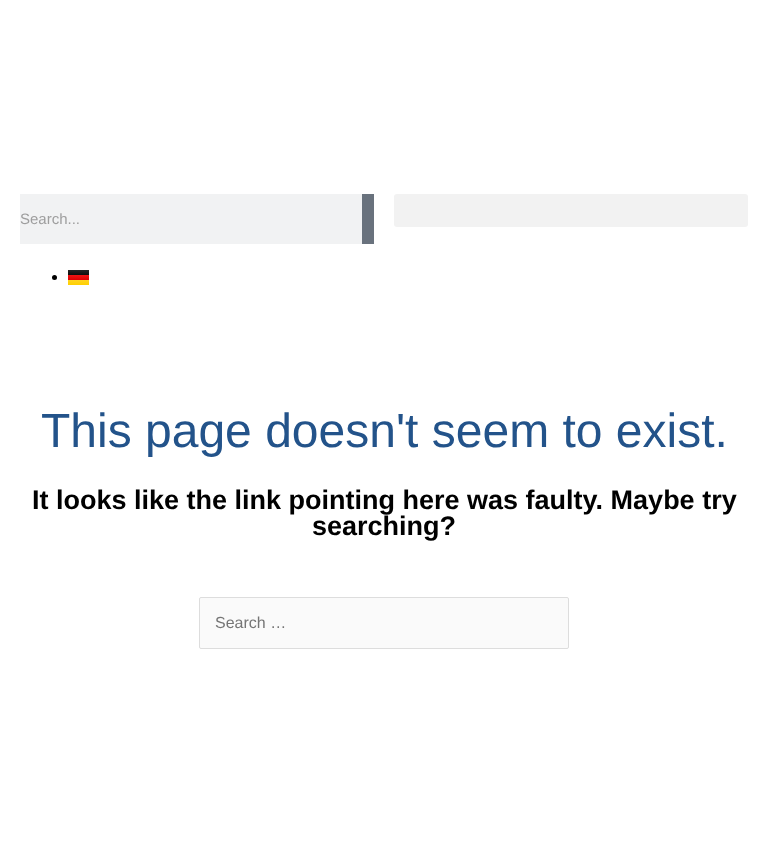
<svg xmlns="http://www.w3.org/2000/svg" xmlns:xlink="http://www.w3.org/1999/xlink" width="768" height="845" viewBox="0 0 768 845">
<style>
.cls-1{font:15px Liberation Sans;fill:#9e9e9e}
.cls-2{font:48px Liberation Sans;fill:#23538a}
.cls-3{font:bold 27px Liberation Sans;fill:#000000}
.cls-4{font:16px Liberation Sans;fill:#757575}
</style>
<defs>
<linearGradient id="g1" gradientUnits="userSpaceOnUse" x1="79" y1="270" x2="79" y2="275"><stop offset="0" stop-color="#262626"/><stop offset="1" stop-color="#0d0d0d"/></linearGradient>
<linearGradient id="g2" gradientUnits="userSpaceOnUse" x1="79" y1="275" x2="79" y2="280"><stop offset="0" stop-color="#f01515"/><stop offset="1" stop-color="#de0000"/></linearGradient>
<linearGradient id="g3" gradientUnits="userSpaceOnUse" x1="79" y1="280" x2="79" y2="285"><stop offset="0" stop-color="#ffd521"/><stop offset="1" stop-color="#ffcf00"/></linearGradient>
</defs>
<rect width="100%" height="100%" fill="#ffffff"/>
<rect fill="#f1f2f3" x="20" y="194" width="342" height="50"/>
<rect fill="#69727d" x="362" y="194" width="12" height="50"/>
<rect fill="url(#g1)" x="68" y="270" width="21" height="5"/>
<circle fill="#000000" cx="54.5" cy="277.5" r="2.5"/>
<rect fill="url(#g2)" x="68" y="275" width="21" height="5"/>
<rect fill="url(#g3)" x="68" y="280" width="21" height="5"/>
<rect fill="#f2f2f2" x="394" y="194" width="354" height="33" rx="3"/>
<rect fill="#fafafa" stroke="#dddddd" x="199.5" y="597.5" width="369" height="51" rx="1.5"/>
<text class="cls-1" x="20" y="224">Search...</text>
<text class="cls-2" x="41" y="447">This page doesn't seem to exist.</text>
<text class="cls-3" x="32" y="509">It looks like the link pointing here was faulty. Maybe try</text>
<text class="cls-3" x="312" y="535">searching?</text>
<text class="cls-4" x="215" y="628">Search …</text>
</svg>
